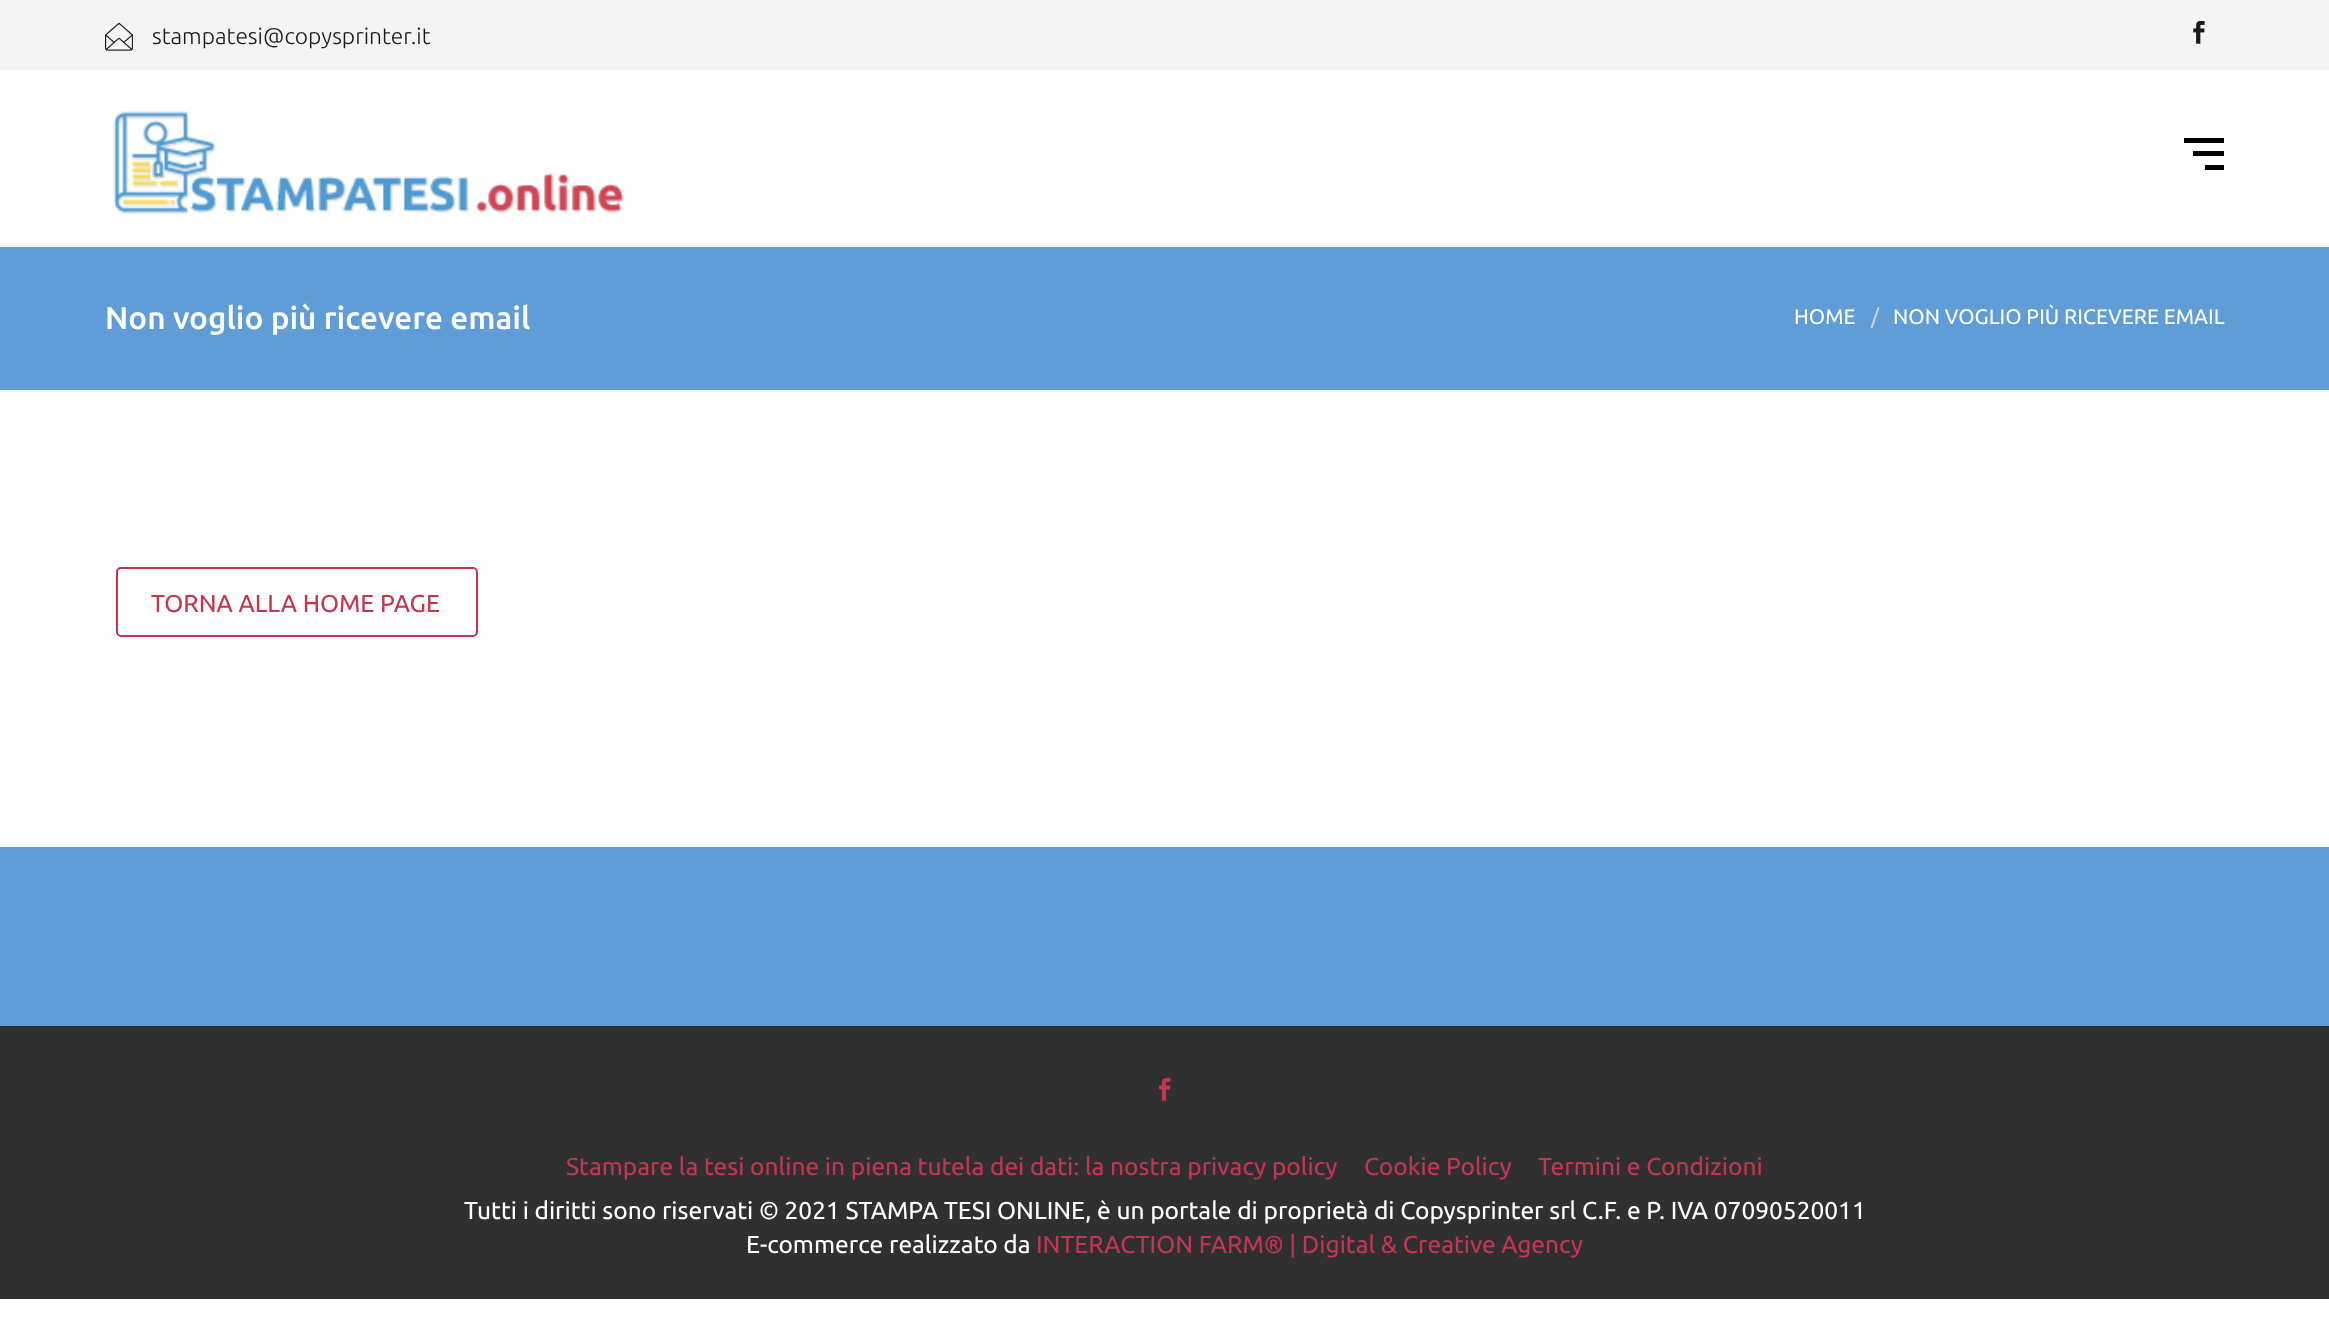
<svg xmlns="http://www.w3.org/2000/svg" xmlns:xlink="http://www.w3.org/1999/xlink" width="2329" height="1332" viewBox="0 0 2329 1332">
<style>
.cls-1{font:300 22.75px Ubuntu;fill:#1a1a1a}
.cls-2{font:500 31.5px Ubuntu;fill:#ffffff}
.cls-3{font:21px Ubuntu;fill:#ffffff}
.cls-4{font:21px Ubuntu;fill:#d1d3d4}
.cls-5{font:24.5px Ubuntu;fill:#c23650}
.cls-6{font:24.5px Ubuntu;fill:#ffffff}
</style>
<rect width="100%" height="100%" fill="#ffffff"/>
<rect fill="#f4f4f4" x="0" y="0" width="2329" height="70"/>
<image xlink:href="image0.png" x="105" y="22" width="28" height="29"/>
<image xlink:href="image1.png" x="2193" y="21" width="12" height="23"/>
<rect fill="#f1f2f2" x="0" y="245" width="2329" height="2"/>
<image xlink:href="image2.png" x="113" y="111" width="511" height="103"/>
<rect fill="#000000" x="2193" y="151" width="31" height="5"/>
<rect fill="#000000" x="2184" y="138" width="40" height="5"/>
<rect fill="#000000" x="2205" y="165" width="19" height="5"/>
<rect fill="#609dd6" x="0" y="247" width="2329" height="143"/>
<rect fill="#f1f2f2" x="0" y="390" width="2329" height="2"/>
<rect fill="none" stroke="#c23650" stroke-width="2" x="117" y="568" width="360" height="68" rx="4"/>
<rect fill="#609dd6" x="0" y="847" width="2329" height="179"/>
<rect fill="#303030" x="0" y="1026" width="2329" height="273"/>
<image xlink:href="image3.png" x="1159" y="1078" width="12" height="23"/>
<text class="cls-1" x="152" y="44">stampatesi@copysprinter.it</text>
<text class="cls-2" x="105" y="329">Non voglio più ricevere email</text>
<text class="cls-3" x="1794" y="324">HOME</text>
<text class="cls-4" x="1871" y="324">/</text>
<text class="cls-3" x="1893" y="324">NON VOGLIO PIÙ RICEVERE EMAIL</text>
<text class="cls-5" x="151" y="612">TORNA ALLA HOME PAGE</text>
<text class="cls-5" x="566" y="1175">Stampare la tesi online in piena tutela dei dati: la nostra privacy policy</text>
<text class="cls-5" x="1364" y="1175">Cookie Policy</text>
<text class="cls-5" x="1538" y="1175">Termini e Condizioni</text>
<text class="cls-6" x="464" y="1219">Tutti i diritti sono riservati © 2021 STAMPA TESI ONLINE, è un portale di proprietà di Copysprinter srl C.F. e P. IVA 07090520011</text>
<text class="cls-6" x="746" y="1253">E-commerce realizzato da</text>
<text class="cls-5" x="1036" y="1253">INTERACTION FARM® | Digital &amp; Creative Agency</text>
</svg>
